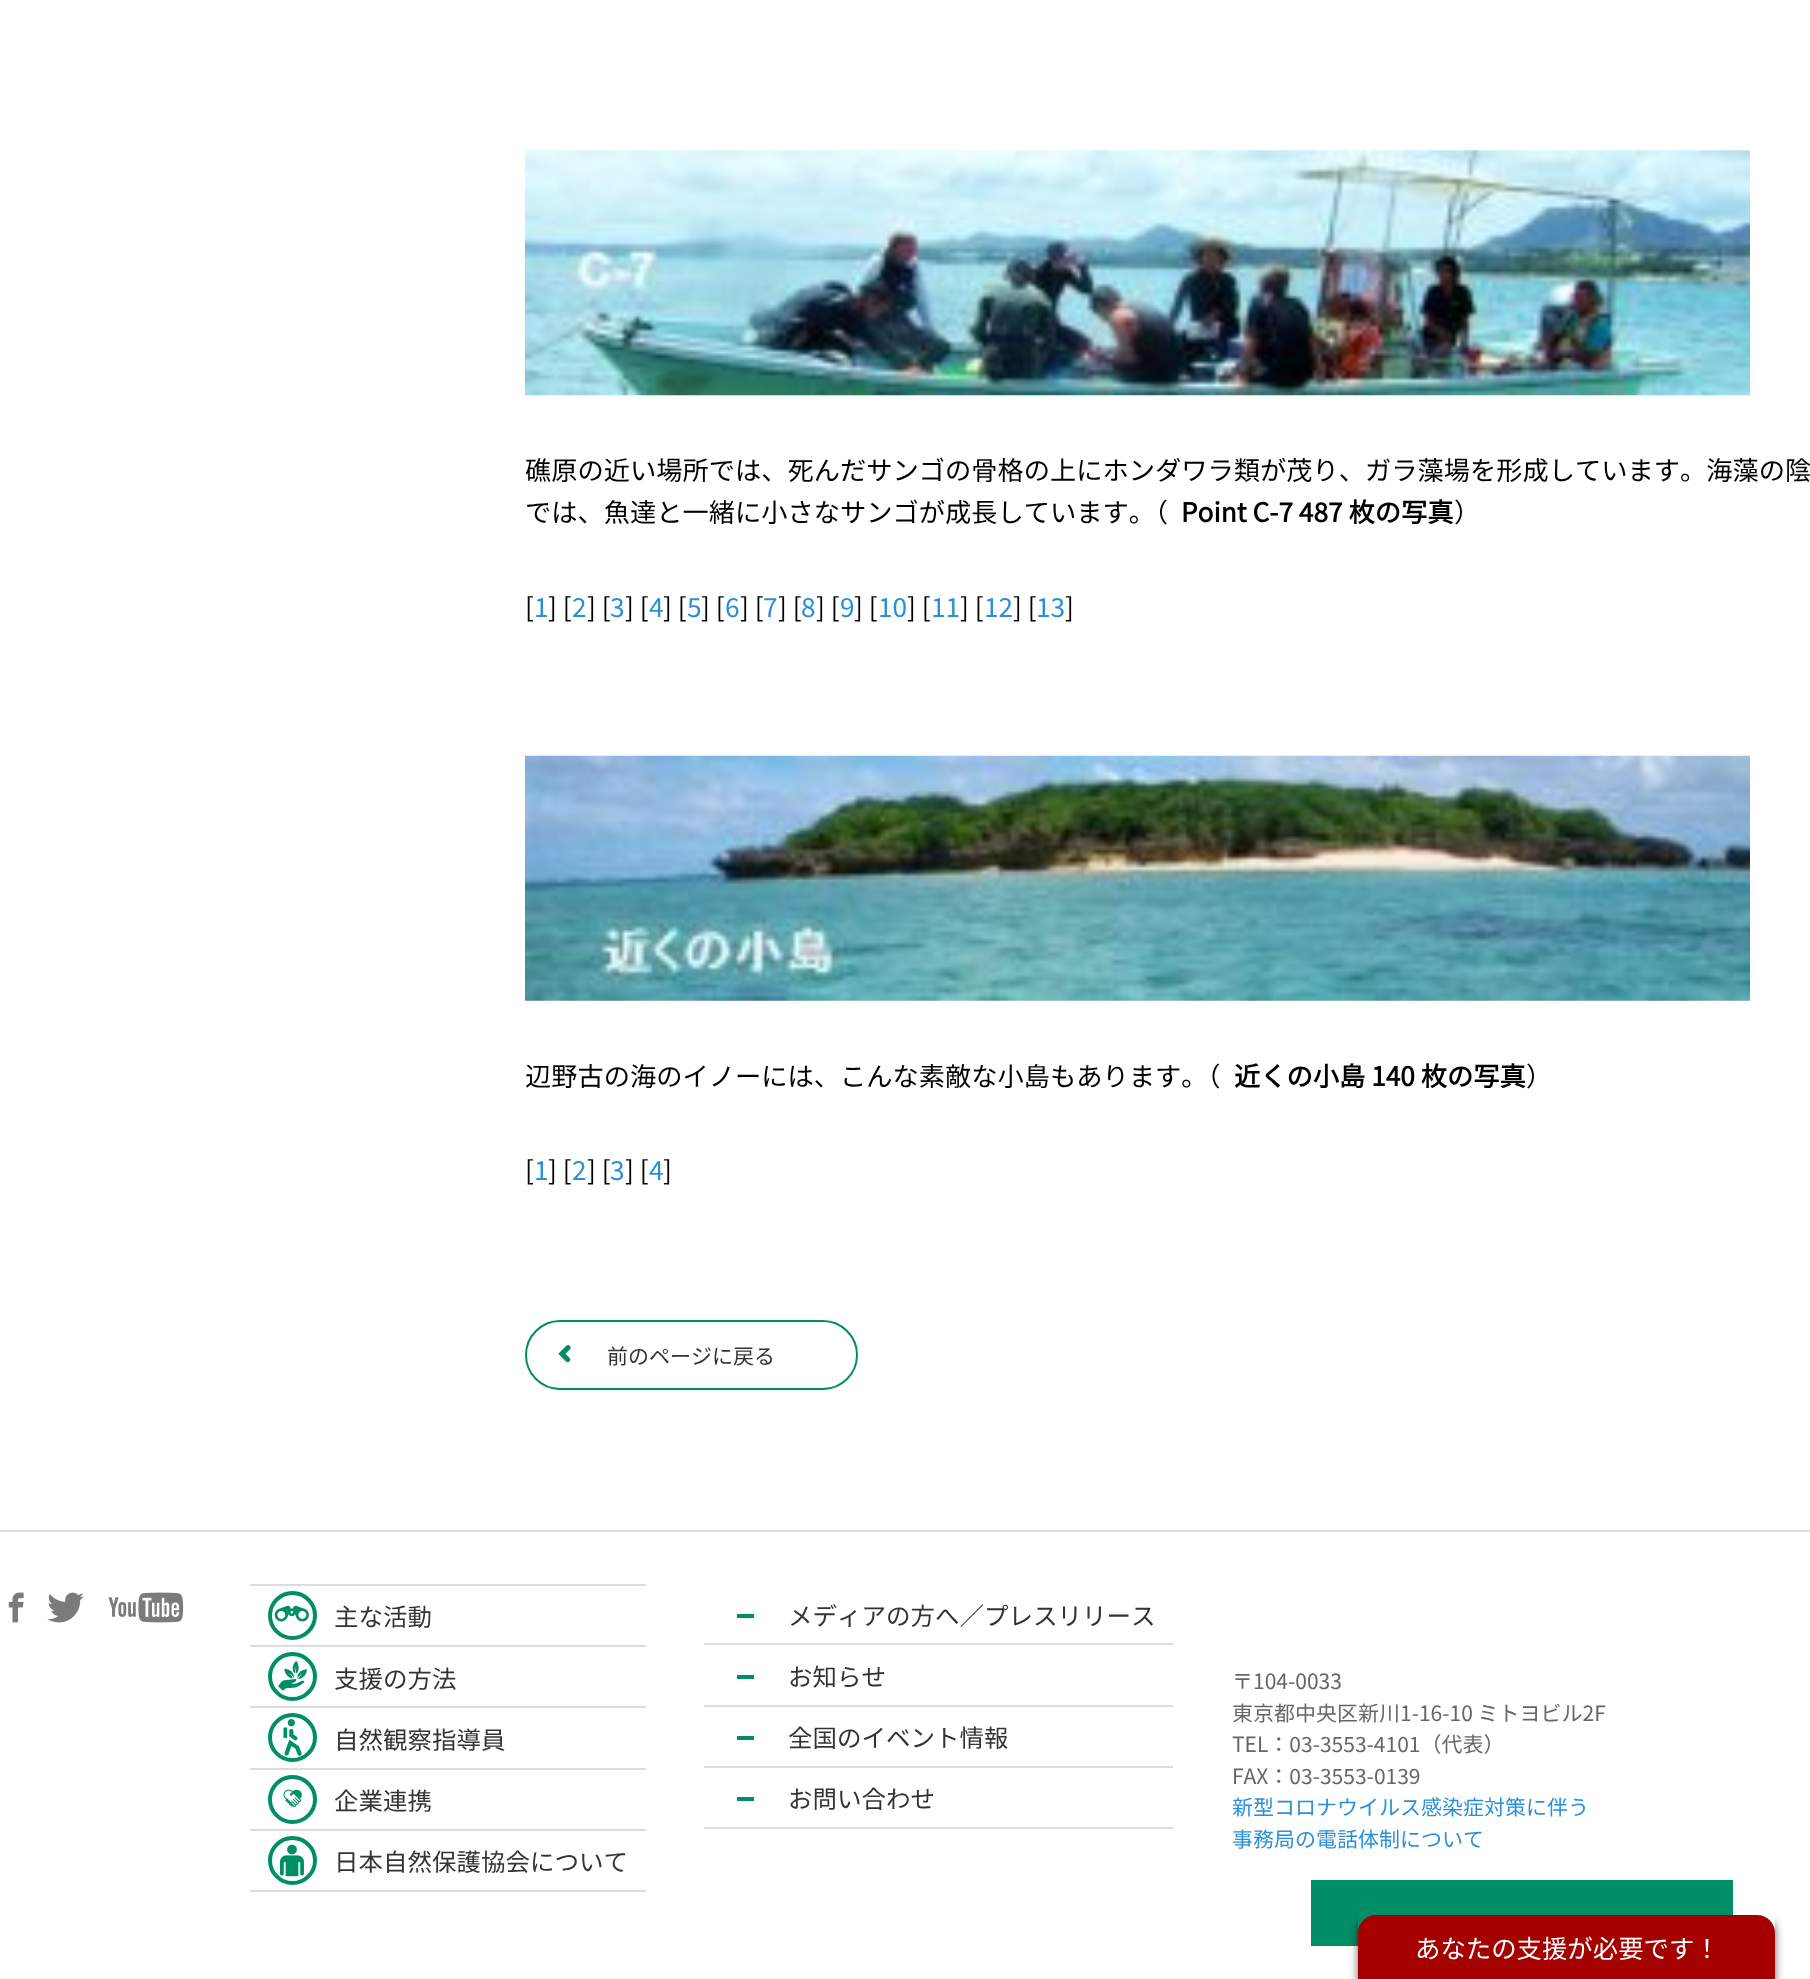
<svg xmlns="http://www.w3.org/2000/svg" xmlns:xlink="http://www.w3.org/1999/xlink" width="1810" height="1979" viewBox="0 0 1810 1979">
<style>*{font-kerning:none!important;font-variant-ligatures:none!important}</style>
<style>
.cls-1{font:26.25px Noto Sans JP;fill:#000000}
.cls-2{font:bold 26.25px Noto Sans JP;fill:#000000}
.cls-3{font:26.25px Noto Sans JP;fill:#298fdb}
.cls-4{font:21px Noto Sans JP;fill:#333333}
.cls-5{font:24.5px Noto Sans JP;fill:#333333}
.cls-6{font:21px Noto Sans JP;fill:#666666}
.cls-7{font:21px Noto Sans JP;fill:#298fdb}
.cls-8{font:25.4px Noto Sans JP;fill:#ffffff}
</style>
<defs>
<clipPath id="clip1"><path d="M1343 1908H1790V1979H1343ZM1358 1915H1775V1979H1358Z" clip-rule="evenodd"/></clipPath>
</defs>
<rect width="100%" height="100%" fill="#ffffff"/>
<image xlink:href="image0.png" x="525" y="150" width="1225" height="246"/>
<image xlink:href="image1.png" x="525" y="755" width="1225" height="246"/>
<rect fill="none" stroke="#008d66" stroke-width="2" x="526" y="1321" width="331" height="68" rx="34"/>
<image xlink:href="image2.png" x="558" y="1345" width="13" height="18"/>
<rect fill="#dddddd" x="0" y="1530" width="1810" height="2"/>
<image xlink:href="image3.png" x="8" y="1592" width="16" height="31"/>
<image xlink:href="image4.png" x="47" y="1592" width="37" height="31"/>
<image xlink:href="image5.png" x="108" y="1592" width="76" height="31"/>
<rect fill="#dcdcdc" x="250" y="1584" width="396" height="2"/>
<rect fill="#dcdcdc" x="250" y="1645" width="396" height="2"/>
<circle fill="none" stroke="#008e66" stroke-width="4" cx="292.5" cy="1615.5" r="22.5"/>
<image xlink:href="image6.png" x="274" y="1605" width="35" height="17"/>
<rect fill="#dcdcdc" x="250" y="1706" width="396" height="2"/>
<circle fill="none" stroke="#008e66" stroke-width="4" cx="292.5" cy="1676.5" r="22.5"/>
<image xlink:href="image7.png" x="278" y="1660" width="29" height="31"/>
<rect fill="#dcdcdc" x="250" y="1768" width="396" height="2"/>
<circle fill="none" stroke="#008e66" stroke-width="4" cx="292.5" cy="1737.5" r="22.5"/>
<image xlink:href="image8.png" x="283" y="1719" width="19" height="37"/>
<rect fill="#dcdcdc" x="250" y="1829" width="396" height="2"/>
<circle fill="none" stroke="#008e66" stroke-width="4" cx="292.5" cy="1799.5" r="22.5"/>
<image xlink:href="image9.png" x="283" y="1789" width="19" height="19"/>
<rect fill="#dcdcdc" x="250" y="1890" width="396" height="2"/>
<circle fill="none" stroke="#008e66" stroke-width="4" cx="292.5" cy="1860.5" r="22.5"/>
<image xlink:href="image10.png" x="280" y="1844" width="24" height="33"/>
<rect fill="#dcdcdc" x="704" y="1643" width="469" height="2"/>
<rect fill="#008e66" x="737" y="1614" width="17" height="4"/>
<rect fill="#dcdcdc" x="704" y="1705" width="469" height="2"/>
<rect fill="#008e66" x="737" y="1675" width="17" height="4"/>
<rect fill="#dcdcdc" x="704" y="1766" width="469" height="2"/>
<rect fill="#008e66" x="737" y="1736" width="17" height="4"/>
<rect fill="#dcdcdc" x="704" y="1827" width="469" height="2"/>
<rect fill="#008e66" x="737" y="1797" width="17" height="4"/>
<rect fill="#008e66" x="1311" y="1880" width="422" height="66"/>
<g clip-path="url(#clip1)">
<rect fill="#000000" fill-opacity="0.6" filter="blur(4.5px)" x="1358" y="1923" width="417" height="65"/>
</g>
<path fill="#a40000" d="M1376 1915H1757C1767 1915 1775 1923 1775 1933V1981H1358V1933C1358 1923 1366 1915 1376 1915Z"/>
<text class="cls-1"><tspan x="525" y="480">礁原の近い場所では、死んだサンゴの骨格の上にホンダワラ類が茂り、ガラ藻場を形成しています。海藻の陰</tspan><tspan x="525" y="522">では、魚達と一緒に小さなサンゴが成長しています。（</tspan></text>
<text class="cls-2" x="1181" y="522">Point C-7 487 枚の写真</text>
<text class="cls-1" x="1454" y="522">）</text>
<text class="cls-1" x="525" y="617">[</text>
<text class="cls-3" x="534" y="617">1</text>
<text class="cls-1" x="548" y="617">] [</text>
<text class="cls-3" x="572" y="617">2</text>
<text class="cls-1" x="587" y="617">] [</text>
<text class="cls-3" x="610" y="617">3</text>
<text class="cls-1" x="625" y="617">] [</text>
<text class="cls-3" x="649" y="617">4</text>
<text class="cls-1" x="663" y="617">] [</text>
<text class="cls-3" x="687" y="617">5</text>
<text class="cls-1" x="701" y="617">] [</text>
<text class="cls-3" x="725" y="617">6</text>
<text class="cls-1" x="740" y="617">] [</text>
<text class="cls-3" x="763" y="617">7</text>
<text class="cls-1" x="778" y="617">] [</text>
<text class="cls-3" x="801" y="617">8</text>
<text class="cls-1" x="816" y="617">] [</text>
<text class="cls-3" x="840" y="617">9</text>
<text class="cls-1" x="854" y="617">] [</text>
<text class="cls-3" x="878" y="617">10</text>
<text class="cls-1" x="907" y="617">] [</text>
<text class="cls-3" x="931" y="617">11</text>
<text class="cls-1" x="960" y="617">] [</text>
<text class="cls-3" x="984" y="617">12</text>
<text class="cls-1" x="1013" y="617">] [</text>
<text class="cls-3" x="1036" y="617">13</text>
<text class="cls-1" x="1065" y="617">]</text>
<text class="cls-1" x="525" y="1086">辺野古の海のイノーには、こんな素敵な小島もあります。（</text>
<text class="cls-2" x="1234" y="1086">近くの小島 140 枚の写真</text>
<text class="cls-1" x="1526" y="1086">）</text>
<text class="cls-1" x="525" y="1180">[</text>
<text class="cls-3" x="534" y="1180">1</text>
<text class="cls-1" x="548" y="1180">] [</text>
<text class="cls-3" x="572" y="1180">2</text>
<text class="cls-1" x="587" y="1180">] [</text>
<text class="cls-3" x="610" y="1180">3</text>
<text class="cls-1" x="625" y="1180">] [</text>
<text class="cls-3" x="649" y="1180">4</text>
<text class="cls-1" x="663" y="1180">]</text>
<text class="cls-4" x="607" y="1364">前のページに戻る</text>
<text class="cls-5" x="334" y="1626">主な活動</text>
<text class="cls-5" x="334" y="1688">支援の方法</text>
<text class="cls-5" x="334" y="1749">自然観察指導員</text>
<text class="cls-5" x="334" y="1810">企業連携</text>
<text class="cls-5" x="334" y="1871">日本自然保護協会について</text>
<text class="cls-5" x="788" y="1625">メディアの方へ／プレスリリース</text>
<text class="cls-5" x="788" y="1686">お知らせ</text>
<text class="cls-5" x="788" y="1747">全国のイベント情報</text>
<text class="cls-5" x="788" y="1808">お問い合わせ</text>
<text class="cls-6"><tspan x="1232" y="1689">〒104-0033</tspan><tspan x="1232" y="1721">東京都中央区新川1-16-10 ミトヨビル2F</tspan><tspan x="1232" y="1752">TEL：03-3553-4101（代表）</tspan><tspan x="1232" y="1784">FAX：03-3553-0139</tspan></text>
<text class="cls-7"><tspan x="1232" y="1815">新型コロナウイルス感染症対策に伴う</tspan><tspan x="1232" y="1847">事務局の電話体制について</tspan></text>
<text class="cls-8" x="1415" y="1958">あなたの支援が必要です！</text>
</svg>
